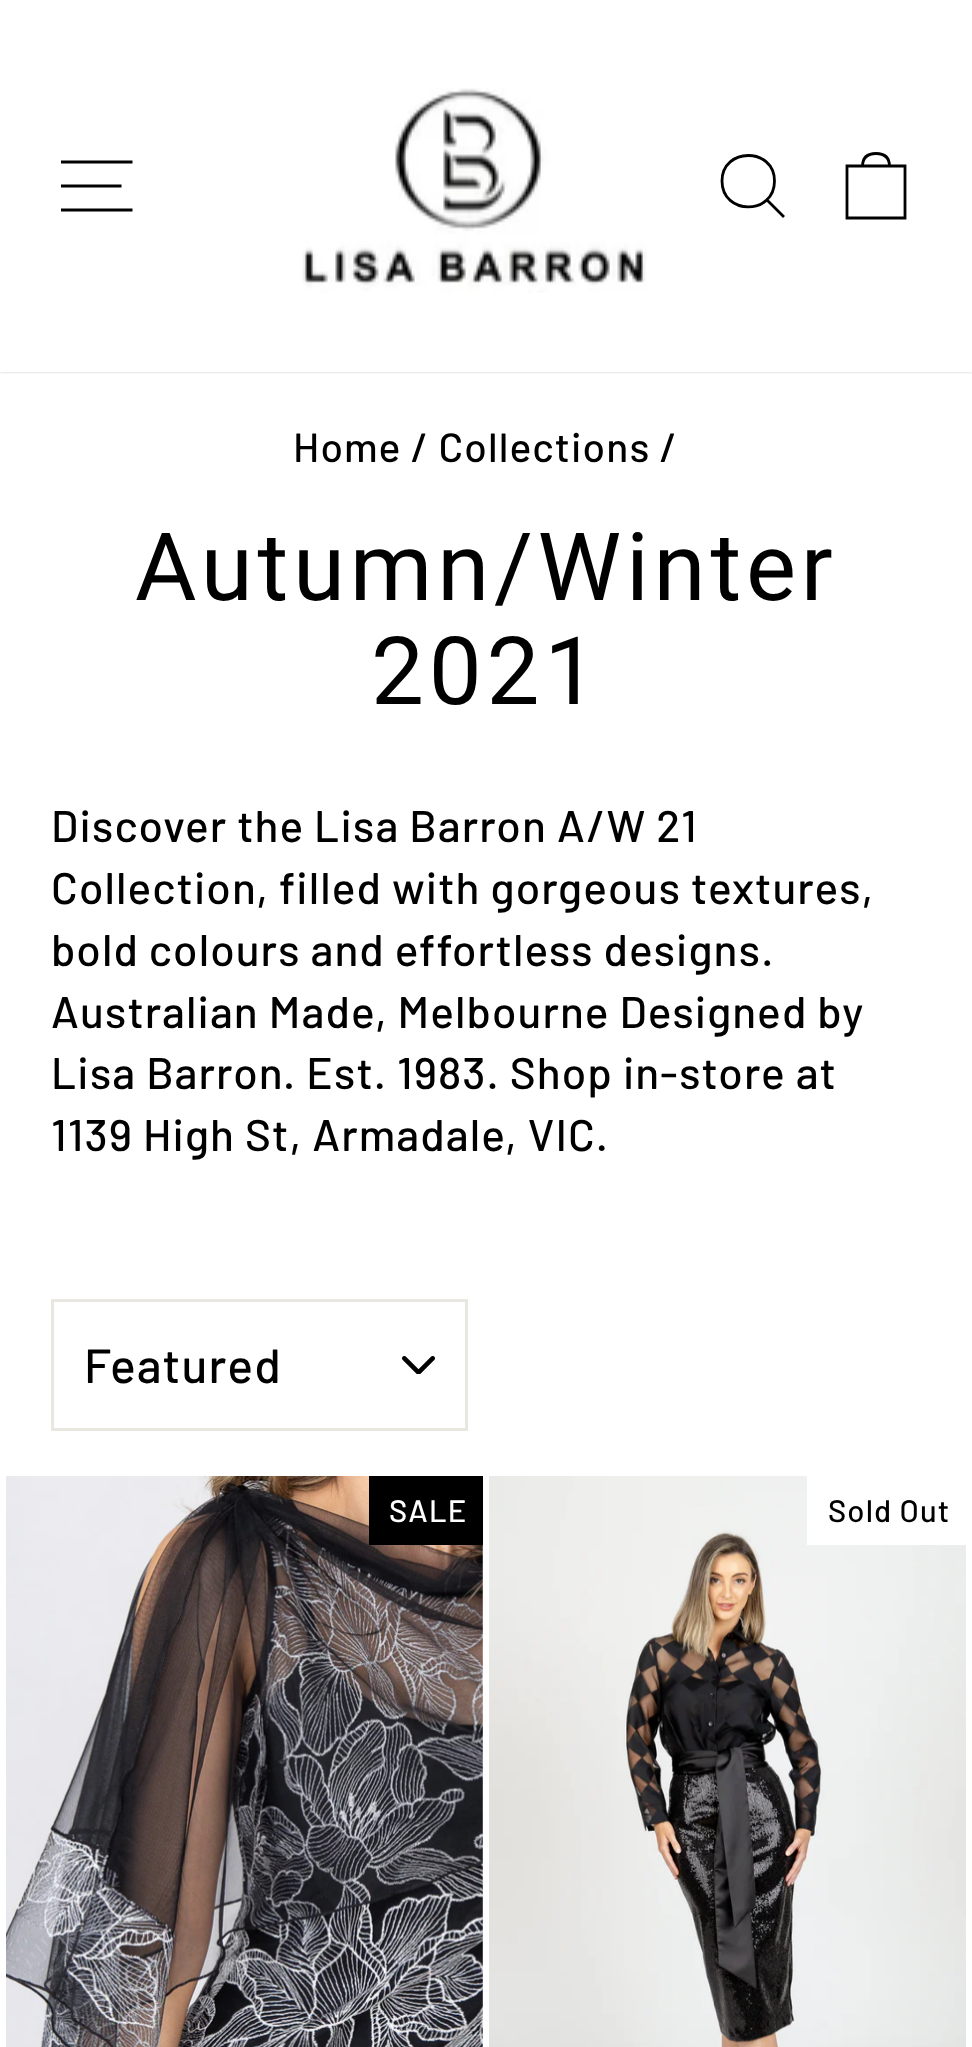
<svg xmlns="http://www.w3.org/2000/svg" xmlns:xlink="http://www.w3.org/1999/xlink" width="972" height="2047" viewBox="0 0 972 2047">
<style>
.cls-1{font:500 40.75px Barlow;letter-spacing:1.1px;fill:#000000}
.cls-2{font:94.25px Roboto;letter-spacing:4.75px;fill:#000000}
.cls-3{font:500 44.2px Barlow;letter-spacing:1.1px;fill:#000000}
.cls-4{font:500 48px Barlow;letter-spacing:1.25px;fill:#000000}
.cls-5{font:500 31px Barlow;letter-spacing:1.1px;fill:#ffffff}
.cls-6{font:500 31px Barlow;letter-spacing:1.1px;fill:#000000}
</style>
<defs>
<clipPath id="clip1"><rect x="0" y="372" width="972" height="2"/></clipPath>
</defs>
<rect width="100%" height="100%" fill="#ffffff"/>
<g clip-path="url(#clip1)">
<rect fill="#000000" fill-opacity="0.2" filter="blur(1.5px)" x="0" y="0" width="972" height="372"/>
</g>
<path fill="none" stroke="#000000" stroke-width="2.8" d="M61 162H132.5M61 186H121.5M61 210H132.5"/>
<image xlink:href="image0.png" x="302" y="87" width="345" height="206"/>
<path fill="none" stroke="#000000" stroke-width="2.8" d="M774.5 181C774.5 215.5 722 215.5 722 181C722 147 774.5 147 774.5 181ZM784 217L767 200"/>
<path fill="none" stroke="#000000" stroke-width="2.8" d="M847 166H905V218H847Z"/>
<path fill="none" stroke="#000000" stroke-width="2.8" d="M862.5 166.5C862.5 156.5 868.5 153.5 876 153.5C883.5 153.5 889.5 156.5 889.5 166.5"/>
<image xlink:href="image1.png" x="402" y="1356" width="33" height="18"/>
<rect fill="none" stroke="#e8e8e1" stroke-width="3" x="52.5" y="1300.5" width="414" height="129"/>
<image xlink:href="image2.png" x="6" y="1476" width="477" height="571"/>
<rect fill="#000000" x="369" y="1476" width="114" height="69"/>
<image xlink:href="image3.png" x="489" y="1476" width="477" height="571"/>
<rect fill="#ffffff" x="807" y="1476" width="159" height="69"/>
<text class="cls-1" x="293" y="462">Home / Collections /</text>
<text class="cls-2" x="135" y="600">Autumn/Winter</text>
<text class="cls-2" x="371" y="704">2021</text>
<text class="cls-3"><tspan x="51" y="842">Discover the Lisa Barron A/W 21</tspan><tspan x="51" y="904">Collection, filled with gorgeous textures,</tspan><tspan x="51" y="966">bold colours and effortless designs.</tspan><tspan x="51" y="1028">Australian Made, Melbourne Designed by</tspan><tspan x="51" y="1089">Lisa Barron. Est. 1983. Shop in-store at</tspan><tspan x="51" y="1151">1139 High St, Armadale, VIC.</tspan></text>
<text class="cls-4" x="84" y="1383">Featured</text>
<text class="cls-5" x="389" y="1522">SALE</text>
<text class="cls-6" x="828" y="1522">Sold Out</text>
</svg>
